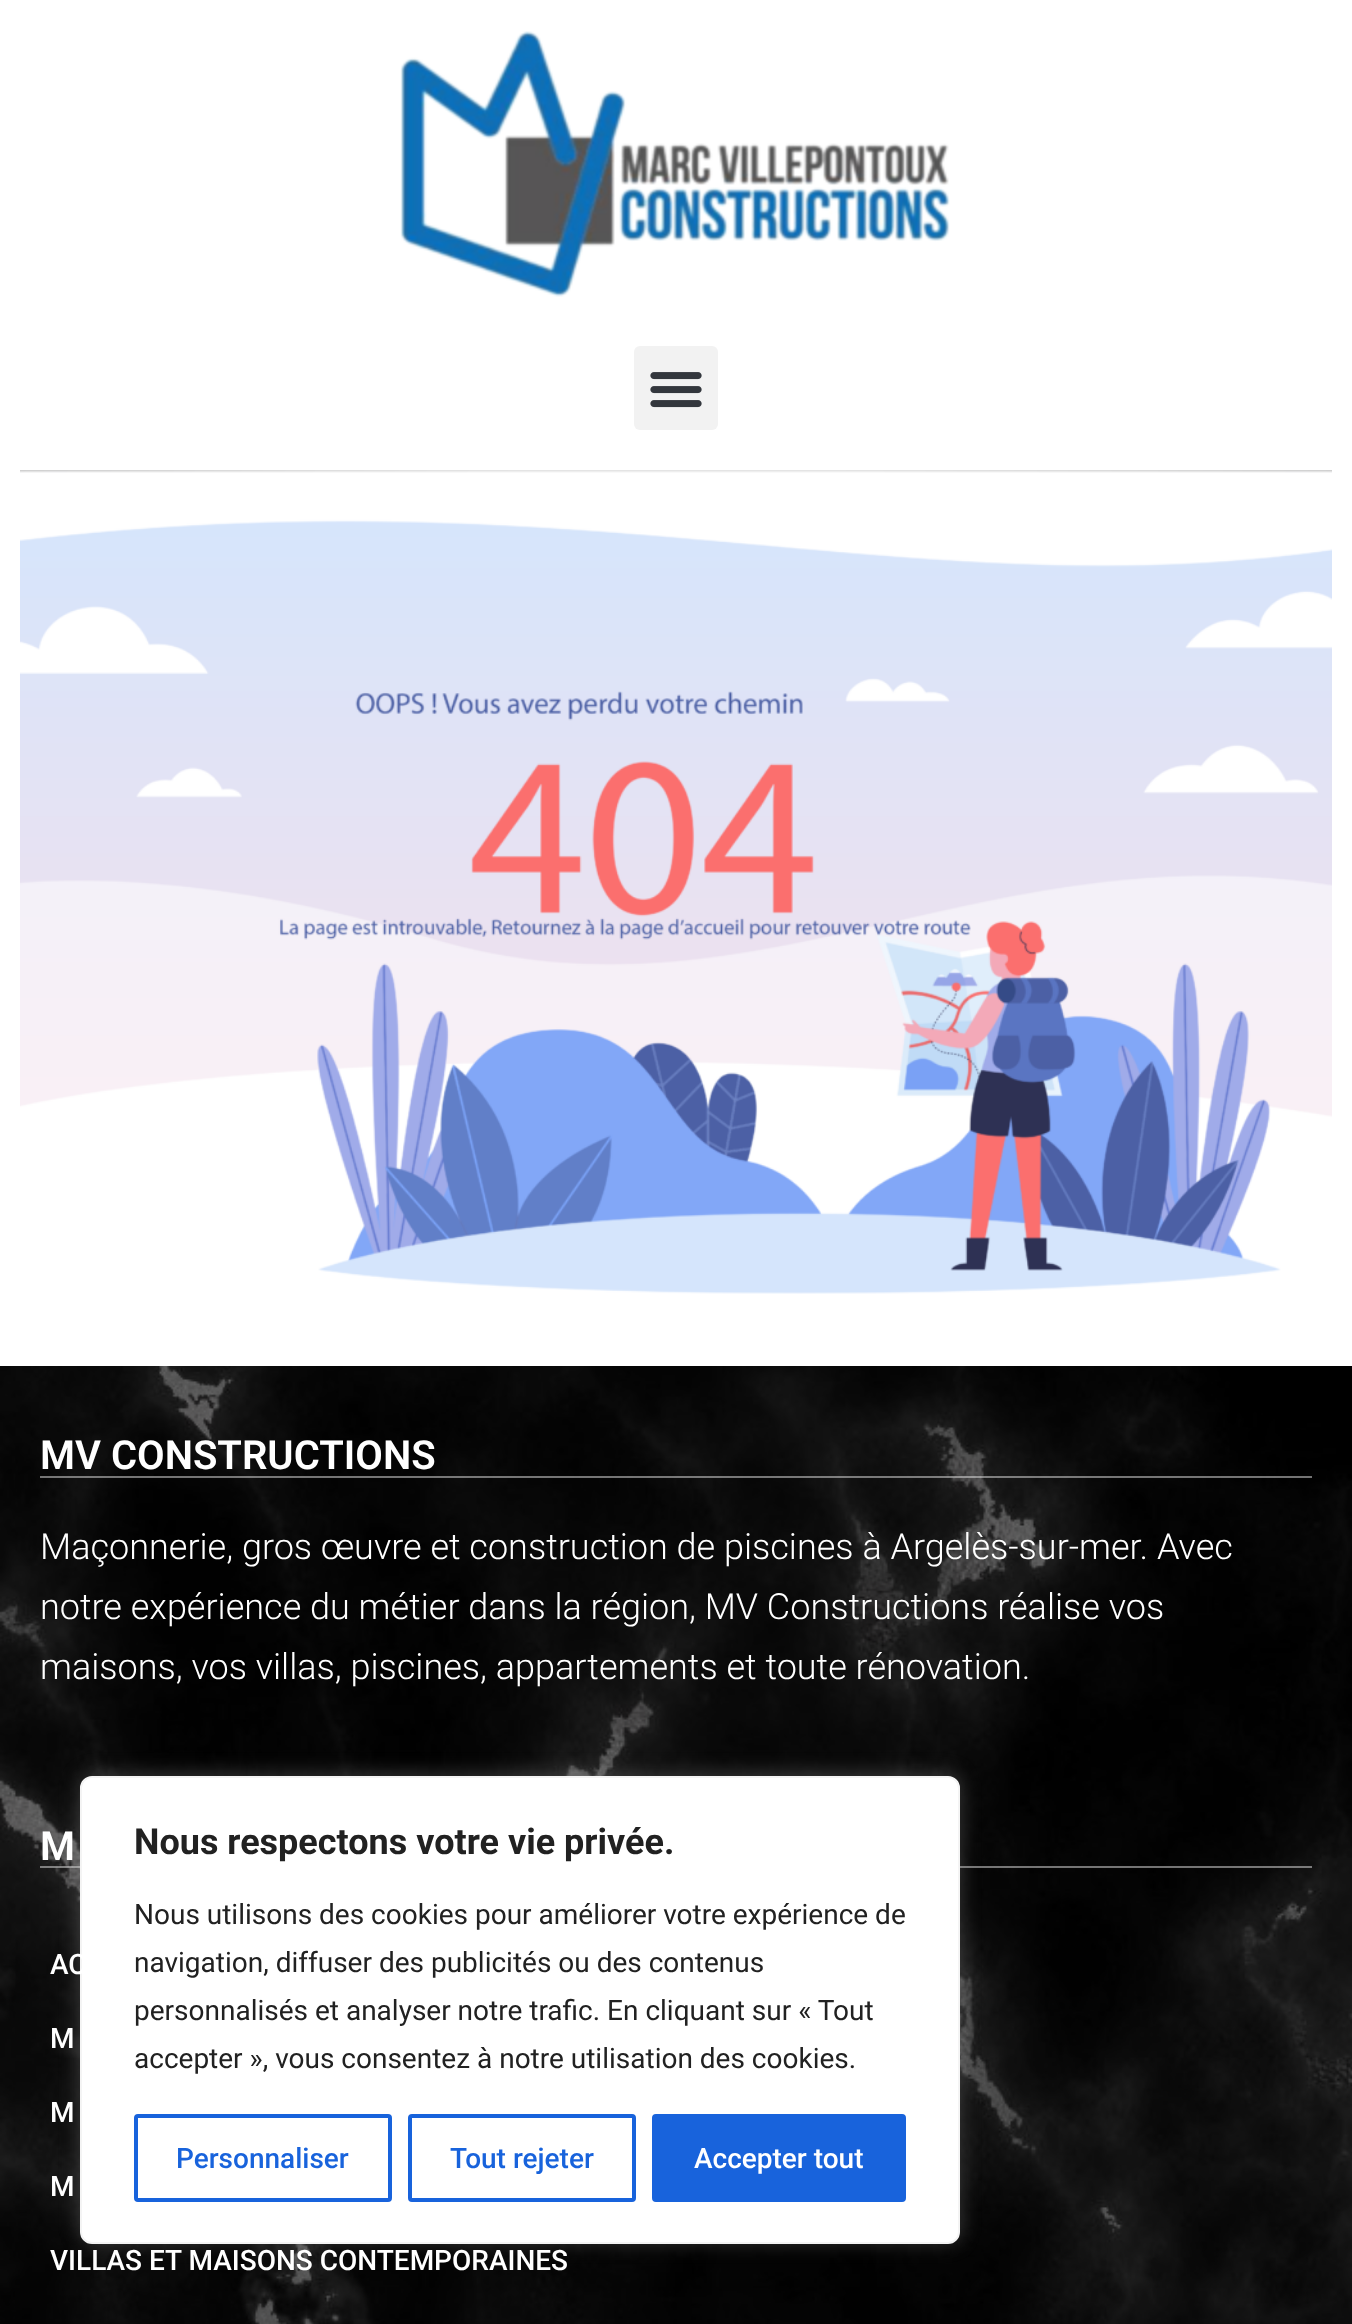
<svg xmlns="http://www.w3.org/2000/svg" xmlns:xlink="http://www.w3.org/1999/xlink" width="1352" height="2324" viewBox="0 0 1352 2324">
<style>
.cls-1{font:600 40px Roboto;fill:#ffffff}
.cls-2{font:300 36px Roboto;fill:#ffffff}
.cls-3{font:500 28px Roboto;fill:#ffffff}
.cls-4{font:bold 36px Roboto;fill:#212121}
.cls-5{font:28px Roboto;fill:#212121}
.cls-6{font:500 28px Roboto;fill:#1863dc}
</style>
<rect width="100%" height="100%" fill="#ffffff"/>
<image xlink:href="image0.png" x="400" y="31" width="550" height="266"/>
<rect fill="#f2f2f2" x="634" y="346" width="84" height="84" rx="6"/>
<image xlink:href="image1.png" x="650" y="372" width="52" height="36"/>
<image xlink:href="image2.png" x="20" y="470" width="1312" height="824"/>
<image xlink:href="image3.png" x="0" y="1366" width="1352" height="958"/>
<rect fill="#eaeaea" fill-opacity="0.49" x="40" y="1476" width="1272" height="2"/>
<rect fill="#eaeaea" fill-opacity="0.49" x="40" y="1866" width="1272" height="2"/>
<rect fill="#acabab" fill-opacity="0.3" filter="blur(10px)" x="80" y="1774" width="880" height="468" rx="12"/>
<rect fill="#ffffff" stroke="#f4f4f4" stroke-width="2" x="81" y="1777" width="878" height="466" rx="11"/>
<rect fill="none" stroke="#1863dc" stroke-width="4" x="136" y="2116" width="254" height="84" rx="2"/>
<rect fill="none" stroke="#1863dc" stroke-width="4" x="410" y="2116" width="224" height="84" rx="2"/>
<rect fill="#1863dc" stroke="#1863dc" stroke-width="4" x="654" y="2116" width="250" height="84" rx="2"/>
<text class="cls-1" x="40" y="1469">MV CONSTRUCTIONS</text>
<text class="cls-2"><tspan x="40" y="1559">Maçonnerie, gros œuvre et construction de piscines à Argelès-sur-mer. Avec</tspan><tspan x="40" y="1619">notre expérience du métier dans la région, MV Constructions réalise vos</tspan><tspan x="40" y="1679">maisons, vos villas, piscines, appartements et toute rénovation.</tspan></text>
<text class="cls-1" x="40" y="1860">M</text>
<text class="cls-3" x="50" y="1974">AC</text>
<text class="cls-3" x="50" y="2048">M</text>
<text class="cls-3" x="50" y="2122">M</text>
<text class="cls-3" x="50" y="2196">M</text>
<text class="cls-3" x="50" y="2270">VILLAS ET MAISONS CONTEMPORAINES</text>
<text class="cls-4" x="134" y="1854">Nous respectons votre vie privée.</text>
<text class="cls-5"><tspan x="134" y="1924">Nous utilisons des cookies pour améliorer votre expérience de</tspan><tspan x="134" y="1972">navigation, diffuser des publicités ou des contenus</tspan><tspan x="134" y="2020">personnalisés et analyser notre trafic. En cliquant sur « Tout</tspan><tspan x="134" y="2068">accepter », vous consentez à notre utilisation des cookies.</tspan></text>
<text class="cls-6" x="176" y="2168">Personnaliser</text>
<text class="cls-6" x="450" y="2168">Tout rejeter</text>
<text class="cls-3" x="694" y="2168">Accepter tout</text>
</svg>
